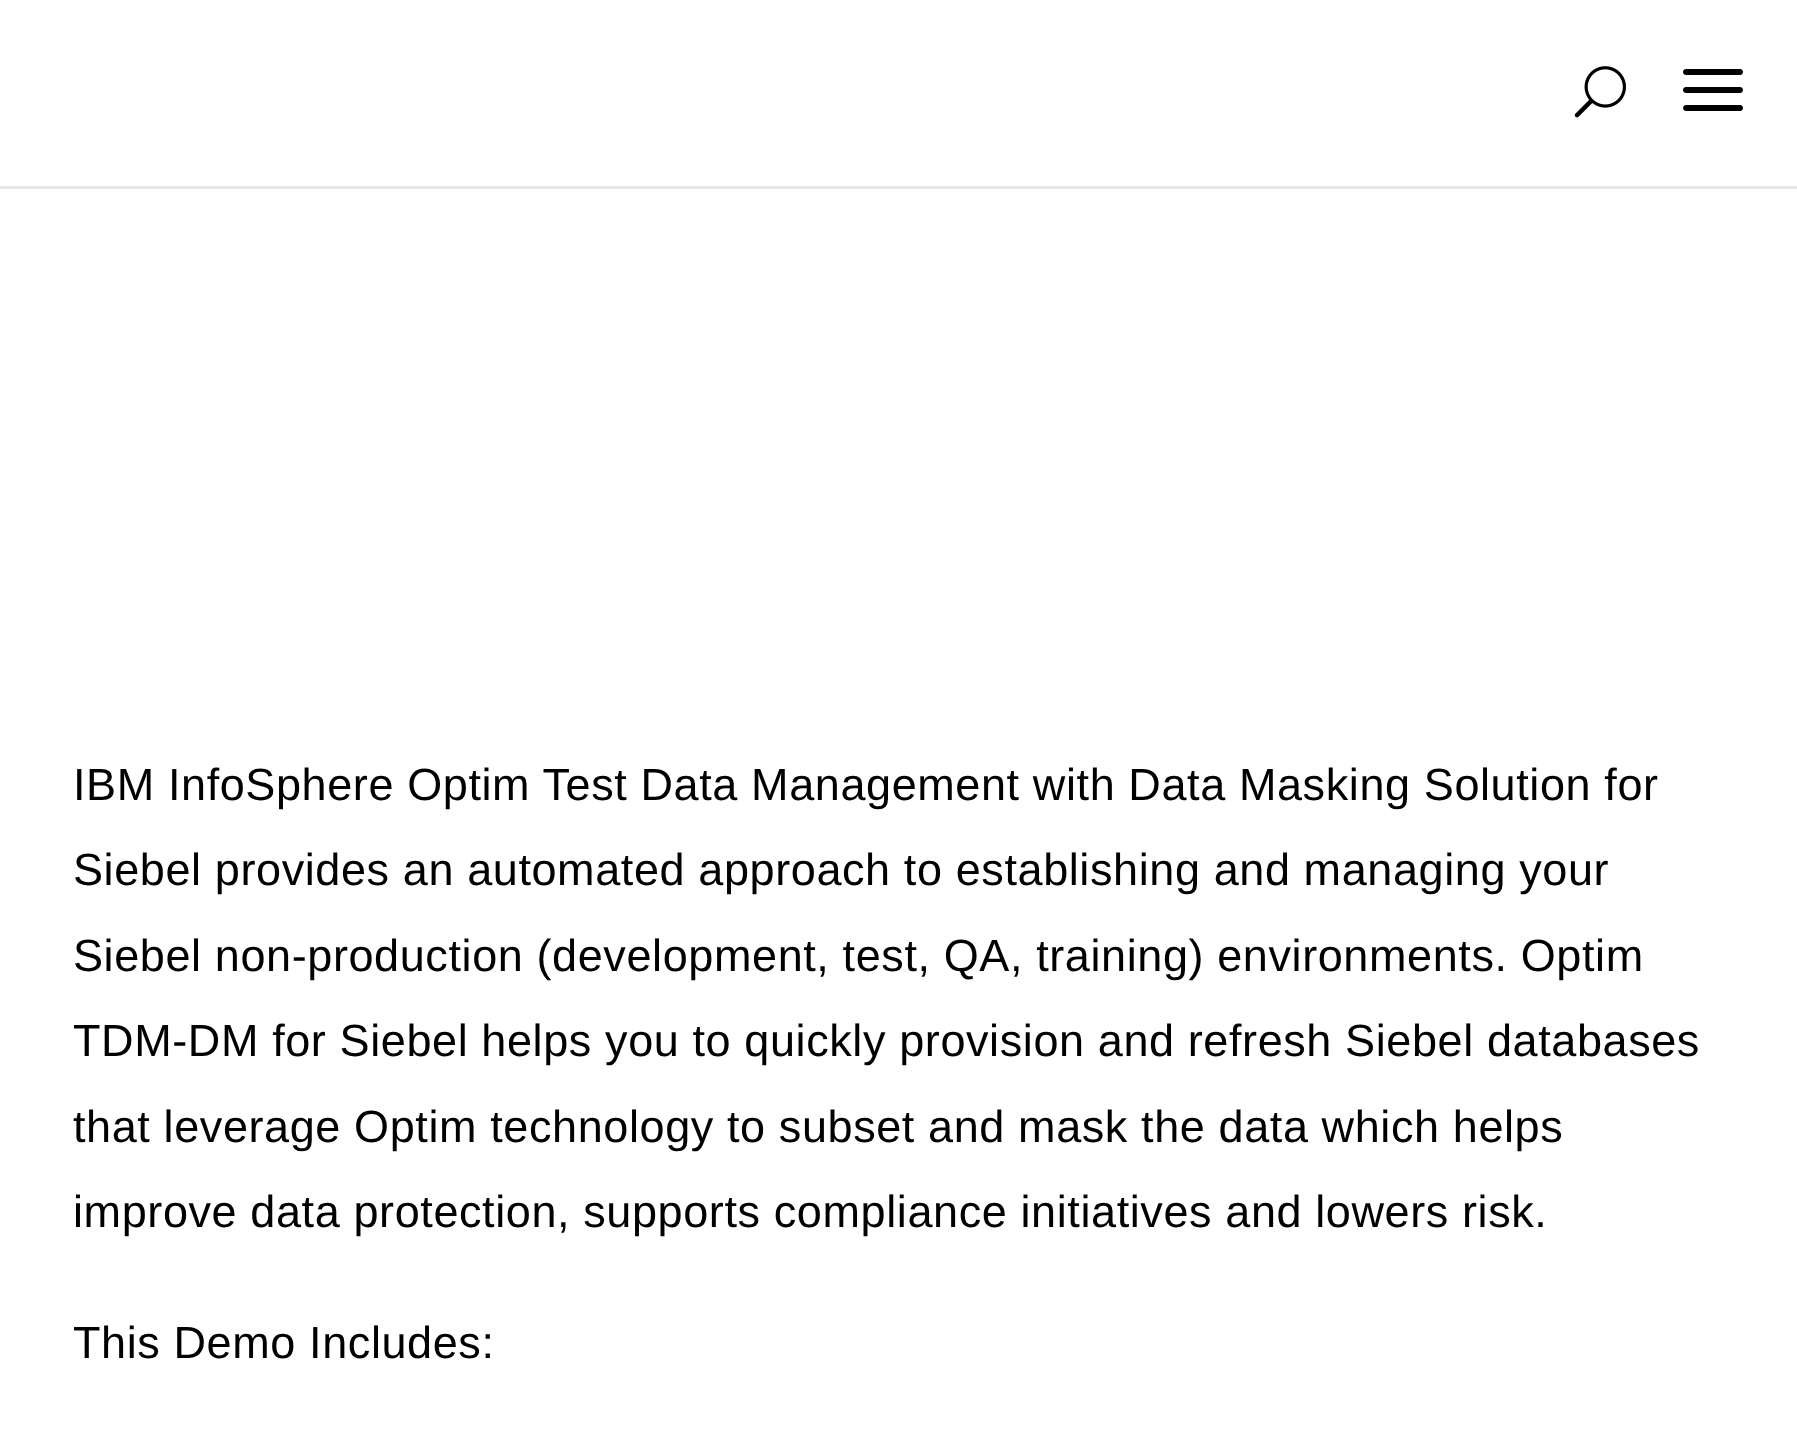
<svg xmlns="http://www.w3.org/2000/svg" xmlns:xlink="http://www.w3.org/1999/xlink" width="1797" height="1444" viewBox="0 0 1797 1444">
<style>
.cls-1{font:45px Liberation Sans;letter-spacing:0.6px;fill:#000000}
</style>
<rect width="100%" height="100%" fill="#ffffff"/>
<rect fill="#e6e6e6" x="0" y="186" width="1797" height="3"/>
<image xlink:href="image0.png" x="1574" y="66" width="52" height="52"/>
<image xlink:href="image1.png" x="1683" y="69" width="60" height="42"/>
<text class="cls-1"><tspan x="73" y="800">IBM InfoSphere Optim Test Data Management with Data Masking Solution for</tspan><tspan x="73" y="885">Siebel provides an automated approach to establishing and managing your</tspan><tspan x="73" y="971">Siebel non-production (development, test, QA, training) environments. Optim</tspan><tspan x="73" y="1056">TDM-DM for Siebel helps you to quickly provision and refresh Siebel databases</tspan><tspan x="73" y="1142">that leverage Optim technology to subset and mask the data which helps</tspan><tspan x="73" y="1227">improve data protection, supports compliance initiatives and lowers risk.</tspan></text>
<text class="cls-1" x="73" y="1358">This Demo Includes:</text>
</svg>
